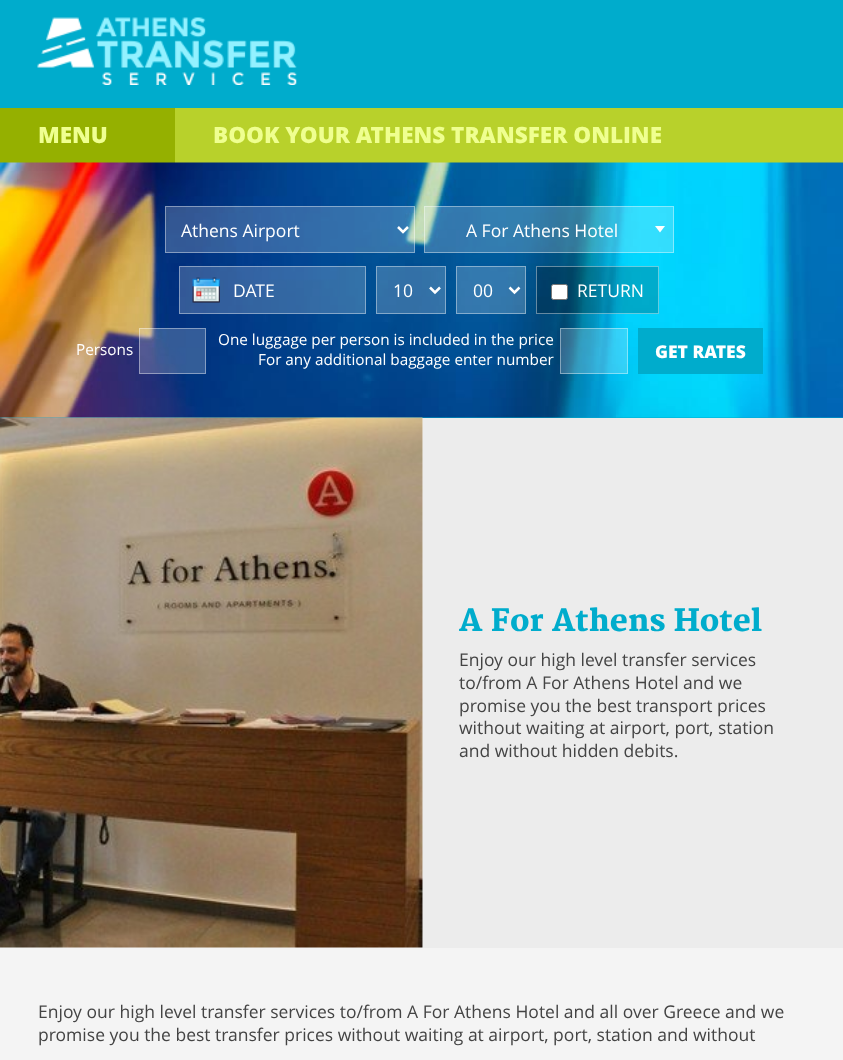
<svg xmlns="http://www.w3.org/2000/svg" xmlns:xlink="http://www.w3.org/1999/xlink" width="843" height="1060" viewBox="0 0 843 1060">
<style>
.cls-1{font:800 22.5px Open Sans;fill:#efff90}
.cls-2{font:17.5px Open Sans;fill:#ffffff}
.cls-3{font:15.3px Open Sans;fill:#ffffff}
.cls-4{font:800 17.5px Open Sans;fill:#ffffff}
.cls-5{font:900 30px Merriweather;fill:#00accc}
.cls-6{font:17.5px Open Sans;fill:#444444}
</style>
<rect width="100%" height="100%" fill="#00accc"/>
<image xlink:href="image0.png" x="37" y="17" width="260" height="68"/>
<rect fill="#95b000" x="0" y="108" width="175" height="55"/>
<rect fill="#b8d12b" x="175" y="108" width="668" height="55"/>
<image xlink:href="image1.png" x="0" y="162" width="843" height="256"/>
<rect fill="#ffffff" fill-opacity="0.2" x="165" y="206" width="250" height="47"/>
<rect fill="none" stroke="#ffffff" stroke-opacity="0.4" x="165.5" y="206.5" width="249" height="46"/>
<path fill="none" stroke="#ffffff" stroke-width="2.5" d="M398 227L403 232L408 227"/>
<rect fill="#ffffff" fill-opacity="0.2" x="424" y="206" width="250" height="47"/>
<rect fill="none" stroke="#ffffff" stroke-opacity="0.4" x="424.5" y="206.5" width="249" height="46"/>
<path fill="#ffffff" d="M655 226H665L660 232.5Z"/>
<rect fill="#ffffff" fill-opacity="0.2" x="179" y="266" width="187" height="48"/>
<image xlink:href="image2.png" x="192" y="277" width="28" height="26"/>
<rect fill="none" stroke="#ffffff" stroke-opacity="0.4" x="179.5" y="266.5" width="186" height="47"/>
<rect fill="#ffffff" fill-opacity="0.2" x="376" y="266" width="70" height="48"/>
<rect fill="none" stroke="#ffffff" stroke-opacity="0.4" x="376.5" y="266.5" width="69" height="47"/>
<path fill="none" stroke="#ffffff" stroke-width="2.5" d="M430 287.5L435 292.5L440 287.5"/>
<rect fill="#ffffff" fill-opacity="0.2" x="456" y="266" width="70" height="48"/>
<rect fill="none" stroke="#ffffff" stroke-opacity="0.4" x="456.5" y="266.5" width="69" height="47"/>
<path fill="none" stroke="#ffffff" stroke-width="2.5" d="M509.5 287.5L514.5 292.5L519.5 287.5"/>
<rect fill="#000000" fill-opacity="0.2" x="536" y="266" width="123" height="48"/>
<rect fill="none" stroke="#ffffff" stroke-opacity="0.4" x="536.5" y="266.5" width="122" height="47"/>
<rect fill="#ffffff" stroke="#767676" x="551.5" y="284.5" width="16" height="15" rx="2"/>
<rect fill="#ffffff" fill-opacity="0.2" x="139" y="328" width="67" height="46"/>
<rect fill="none" stroke="#ffffff" stroke-opacity="0.4" x="139.5" y="328.5" width="66" height="45"/>
<rect fill="#ffffff" fill-opacity="0.2" x="560" y="328" width="68" height="46"/>
<rect fill="none" stroke="#ffffff" stroke-opacity="0.4" x="560.5" y="328.5" width="67" height="45"/>
<rect fill="#00accc" x="638" y="328" width="125" height="46"/>
<rect fill="#f4f4f4" x="0" y="418" width="423" height="530"/>
<image xlink:href="image3.png" x="0" y="417" width="423" height="531"/>
<rect fill="#ececec" x="423" y="418" width="420" height="530"/>
<rect fill="#f4f4f4" x="0" y="948" width="843" height="112"/>
<text class="cls-1" x="38" y="143">MENU</text>
<text class="cls-1" x="213" y="143">BOOK YOUR ATHENS TRANSFER ONLINE</text>
<text class="cls-2" x="181" y="237">Athens Airport</text>
<text class="cls-2" x="466" y="237">A For Athens Hotel</text>
<text class="cls-2" x="233" y="297">DATE</text>
<text class="cls-2" x="393" y="297">10</text>
<text class="cls-2" x="473" y="297">00</text>
<text class="cls-2" x="577" y="297">RETURN</text>
<text class="cls-3" x="76" y="355">Persons</text>
<text class="cls-3" x="218" y="345">One luggage per person is included in the price</text>
<text class="cls-3" x="258" y="365">For any additional baggage enter number</text>
<text class="cls-4" x="655" y="358">GET RATES</text>
<text class="cls-5" x="459" y="631">A For Athens Hotel</text>
<text class="cls-6"><tspan x="459" y="666">Enjoy our high level transfer services</tspan><tspan x="459" y="689">to/from A For Athens Hotel and we</tspan><tspan x="459" y="712">promise you the best transport prices</tspan><tspan x="459" y="734">without waiting at airport, port, station</tspan><tspan x="459" y="757">and without hidden debits.</tspan></text>
<text class="cls-6"><tspan x="38" y="1018">Enjoy our high level transfer services to/from A For Athens Hotel and all over Greece and we</tspan><tspan x="38" y="1041">promise you the best transfer prices without waiting at airport, port, station and without</tspan></text>
</svg>
